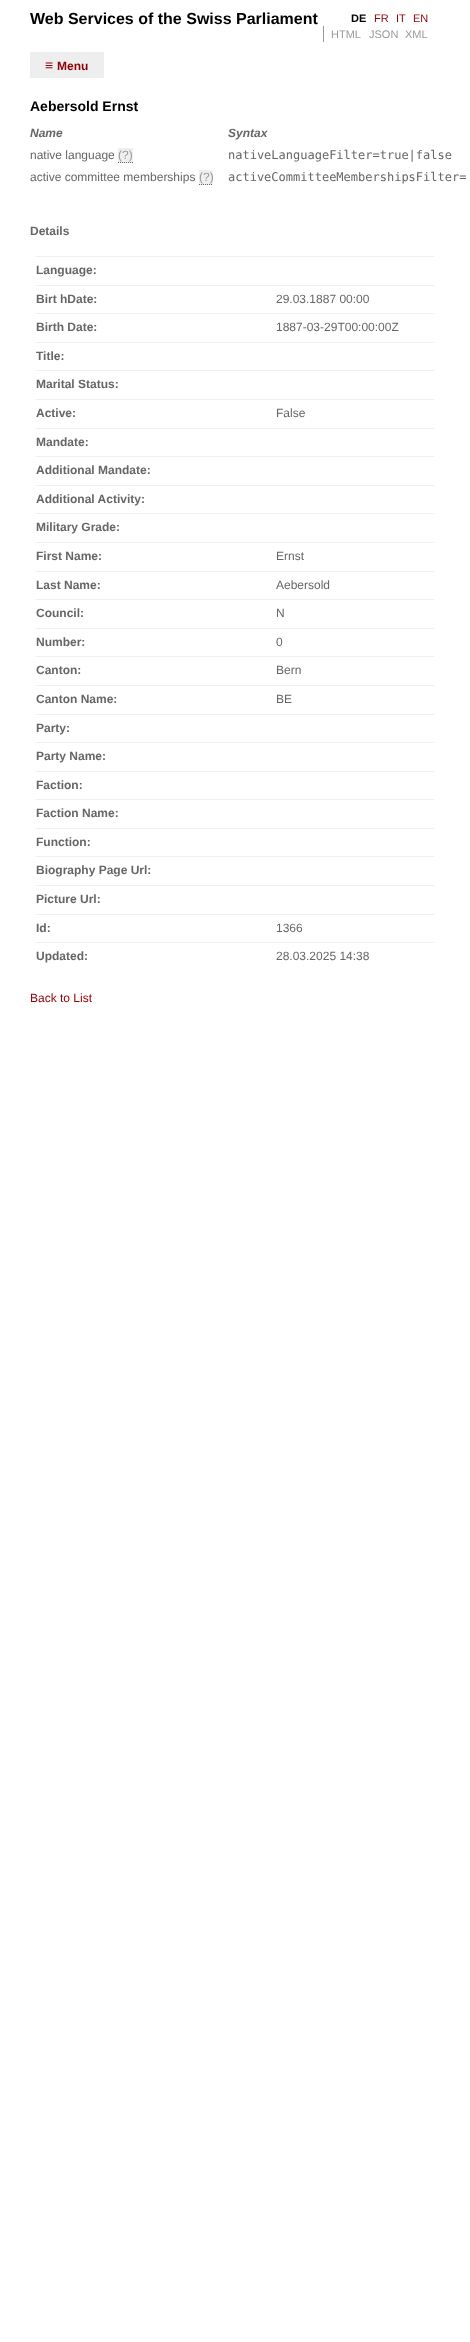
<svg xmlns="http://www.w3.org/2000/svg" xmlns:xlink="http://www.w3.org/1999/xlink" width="470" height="2342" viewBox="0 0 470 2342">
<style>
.cls-1{font:bold 16px Liberation Sans;fill:#000000}
.cls-2{font:bold 11px Liberation Sans;fill:#000000}
.cls-3{font:11px Liberation Sans;fill:#8f0207}
.cls-4{font:11px Liberation Sans;fill:#999999}
.cls-5{font:bold 14px Liberation Sans;fill:#8f0207}
.cls-6{font:bold 12px Liberation Sans;fill:#8f0207}
.cls-7{font:bold 14px Liberation Sans;fill:#000000}
.cls-8{font:italic bold 12px Liberation Sans;fill:#666666}
.cls-9{font:12px Liberation Sans;fill:#666666}
.cls-10{font:12px Liberation Sans;fill:#999999}
.cls-11{font:12px DejaVu Sans Mono;fill:#666666}
.cls-12{font:bold 12px Liberation Sans;fill:#666666}
.cls-13{font:12px Liberation Sans;fill:#8f0207}
</style>
<rect width="100%" height="100%" fill="#ffffff"/>
<rect fill="#999999" x="323" y="26" width="1" height="16"/>
<rect fill="#eeeeee" x="30" y="52" width="74" height="26"/>
<rect fill="#efefef" x="118" y="148" width="15" height="15"/>
<path fill="none" stroke="#666666" stroke-dasharray="1 1" d="M118 162.5H133"/>
<rect fill="#efefef" x="199" y="170" width="14" height="15"/>
<path fill="none" stroke="#666666" stroke-dasharray="1 1" d="M199 184.5H213"/>
<rect fill="#efefef" x="36" y="256" width="398" height="1"/>
<rect fill="#efefef" x="36" y="285" width="398" height="1"/>
<rect fill="#efefef" x="36" y="313" width="398" height="1"/>
<rect fill="#efefef" x="36" y="342" width="398" height="1"/>
<rect fill="#efefef" x="36" y="370" width="398" height="1"/>
<rect fill="#efefef" x="36" y="399" width="398" height="1"/>
<rect fill="#efefef" x="36" y="428" width="398" height="1"/>
<rect fill="#efefef" x="36" y="456" width="398" height="1"/>
<rect fill="#efefef" x="36" y="485" width="398" height="1"/>
<rect fill="#efefef" x="36" y="513" width="398" height="1"/>
<rect fill="#efefef" x="36" y="542" width="398" height="1"/>
<rect fill="#efefef" x="36" y="571" width="398" height="1"/>
<rect fill="#efefef" x="36" y="599" width="398" height="1"/>
<rect fill="#efefef" x="36" y="628" width="398" height="1"/>
<rect fill="#efefef" x="36" y="656" width="398" height="1"/>
<rect fill="#efefef" x="36" y="685" width="398" height="1"/>
<rect fill="#efefef" x="36" y="714" width="398" height="1"/>
<rect fill="#efefef" x="36" y="742" width="398" height="1"/>
<rect fill="#efefef" x="36" y="771" width="398" height="1"/>
<rect fill="#efefef" x="36" y="799" width="398" height="1"/>
<rect fill="#efefef" x="36" y="828" width="398" height="1"/>
<rect fill="#efefef" x="36" y="856" width="398" height="1"/>
<rect fill="#efefef" x="36" y="885" width="398" height="1"/>
<rect fill="#efefef" x="36" y="914" width="398" height="1"/>
<rect fill="#efefef" x="36" y="942" width="398" height="1"/>
<text class="cls-1" x="30" y="24">Web Services of the Swiss Parliament</text>
<text class="cls-2" x="351" y="22">DE</text>
<text class="cls-3" x="374" y="22">FR</text>
<text class="cls-3" x="396" y="22">IT</text>
<text class="cls-3" x="413" y="22">EN</text>
<text class="cls-4" x="331" y="38">HTML</text>
<text class="cls-4" x="369" y="38">JSON</text>
<text class="cls-4" x="405" y="38">XML</text>
<text class="cls-5" x="45" y="70">≡</text>
<text class="cls-6" x="57" y="70">Menu</text>
<text class="cls-7" x="30" y="111">Aebersold Ernst</text>
<text class="cls-8" x="30" y="137">Name</text>
<text class="cls-8" x="228" y="137">Syntax</text>
<text class="cls-9" x="30" y="159">native language</text>
<text class="cls-10" x="118" y="159">(?)</text>
<text class="cls-11" x="228" y="159">nativeLanguageFilter=true|false</text>
<text class="cls-9" x="30" y="181">active committee memberships</text>
<text class="cls-10" x="199" y="181">(?)</text>
<text class="cls-11" x="228" y="181">activeCommitteeMembershipsFilter=</text>
<text class="cls-12" x="30" y="235">Details</text>
<text class="cls-12" x="36" y="274">Language:</text>
<text class="cls-12" x="36" y="303">Birt hDate:</text>
<text class="cls-9" x="276" y="303">29.03.1887 00:00</text>
<text class="cls-12" x="36" y="331">Birth Date:</text>
<text class="cls-9" x="276" y="331">1887-03-29T00:00:00Z</text>
<text class="cls-12" x="36" y="360">Title:</text>
<text class="cls-12" x="36" y="388">Marital Status:</text>
<text class="cls-12" x="36" y="417">Active:</text>
<text class="cls-9" x="276" y="417">False</text>
<text class="cls-12" x="36" y="446">Mandate:</text>
<text class="cls-12" x="36" y="474">Additional Mandate:</text>
<text class="cls-12" x="36" y="503">Additional Activity:</text>
<text class="cls-12" x="36" y="531">Military Grade:</text>
<text class="cls-12" x="36" y="560">First Name:</text>
<text class="cls-9" x="276" y="560">Ernst</text>
<text class="cls-12" x="36" y="589">Last Name:</text>
<text class="cls-9" x="276" y="589">Aebersold</text>
<text class="cls-12" x="36" y="617">Council:</text>
<text class="cls-9" x="276" y="617">N</text>
<text class="cls-12" x="36" y="646">Number:</text>
<text class="cls-9" x="276" y="646">0</text>
<text class="cls-12" x="36" y="674">Canton:</text>
<text class="cls-9" x="276" y="674">Bern</text>
<text class="cls-12" x="36" y="703">Canton Name:</text>
<text class="cls-9" x="276" y="703">BE</text>
<text class="cls-12" x="36" y="732">Party:</text>
<text class="cls-12" x="36" y="760">Party Name:</text>
<text class="cls-12" x="36" y="789">Faction:</text>
<text class="cls-12" x="36" y="817">Faction Name:</text>
<text class="cls-12" x="36" y="846">Function:</text>
<text class="cls-12" x="36" y="874">Biography Page Url:</text>
<text class="cls-12" x="36" y="903">Picture Url:</text>
<text class="cls-12" x="36" y="932">Id:</text>
<text class="cls-9" x="276" y="932">1366</text>
<text class="cls-12" x="36" y="960">Updated:</text>
<text class="cls-9" x="276" y="960">28.03.2025 14:38</text>
<text class="cls-13" x="30" y="1002">Back to List</text>
</svg>
